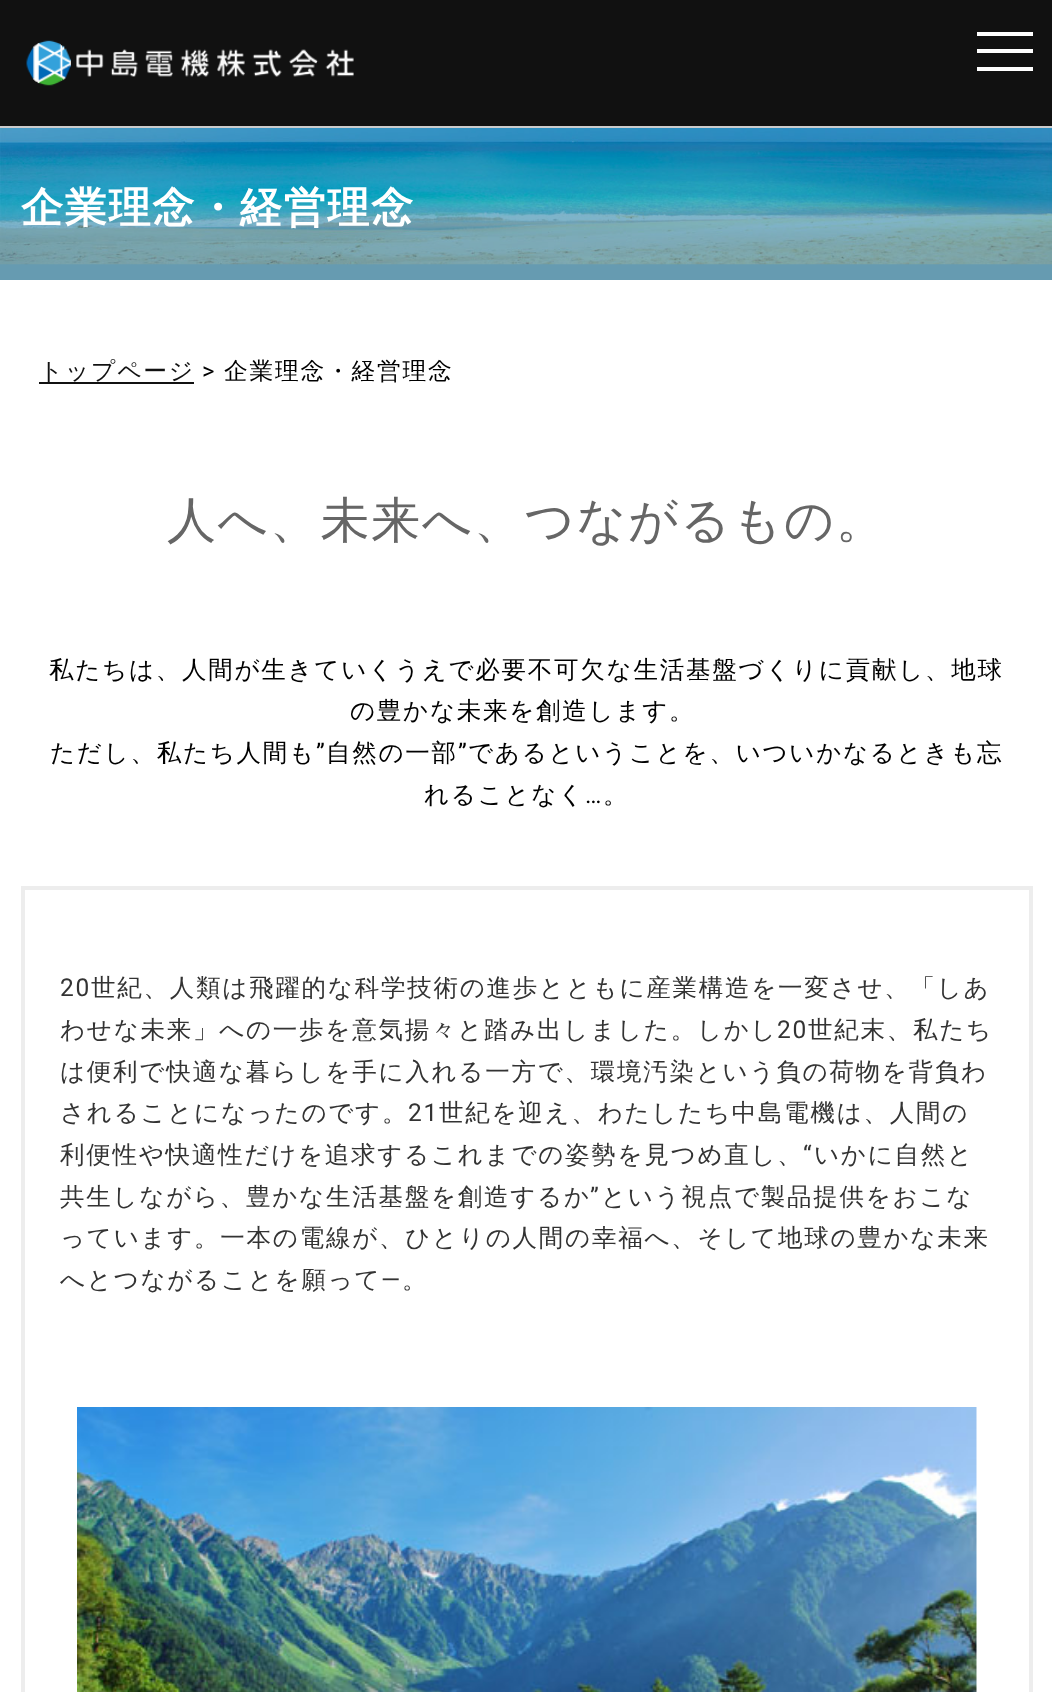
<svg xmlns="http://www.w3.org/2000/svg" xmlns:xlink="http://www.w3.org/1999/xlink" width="1052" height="1692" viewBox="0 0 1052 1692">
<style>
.cls-1{font:bold 42px WenQuanYi Zen Hei;letter-spacing:1.75px;fill:#ffffff}
.cls-2{font:500 23.75px WenQuanYi Zen Hei;letter-spacing:1.75px;fill:#111111}
.cls-3{font:23.75px Roboto;letter-spacing:1.75px;fill:#000000}
.cls-4{font:500 23.75px WenQuanYi Zen Hei;letter-spacing:1.75px;fill:#000000}
.cls-5{font:500 49px WenQuanYi Zen Hei;letter-spacing:1.75px;fill:#666666}
.cls-6{font:500 24.5px WenQuanYi Zen Hei;letter-spacing:1.75px;fill:#000000}
.cls-7{font:24.5px Roboto;letter-spacing:1.75px;fill:#000000}
.cls-8{font:24.5px Roboto;letter-spacing:1.75px;fill:#333333}
.cls-9{font:500 24.5px WenQuanYi Zen Hei;letter-spacing:1.75px;fill:#333333}
</style>
<rect width="100%" height="100%" fill="#ffffff"/>
<rect fill="#111111" x="0" y="0" width="1052" height="126"/>
<rect fill="#ffffff" x="977" y="49" width="56" height="4"/>
<rect fill="#ffffff" x="977" y="32" width="56" height="4"/>
<rect fill="#ffffff" x="977" y="67" width="56" height="4"/>
<rect fill="#cccccc" x="0" y="126" width="1052" height="2"/>
<image xlink:href="image0.png" x="26" y="40" width="328" height="46"/>
<rect fill="#669bb1" x="0" y="264" width="1052" height="16"/>
<image xlink:href="image1.png" x="0" y="128" width="1052" height="137"/>
<rect fill="#111111" x="39" y="382" width="155" height="2"/>
<rect fill="none" stroke="#ededed" stroke-width="4" x="23" y="888" width="1008" height="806"/>
<image xlink:href="image2.png" x="77" y="1407" width="900" height="285"/>
<text class="cls-1" x="21" y="222">企業理念・経営理念</text>
<text class="cls-2" x="39" y="379">トップページ</text>
<text class="cls-3" x="202" y="379">&gt;</text>
<text class="cls-4" x="224" y="379">企業理念・経営理念</text>
<text class="cls-5" x="167" y="537">人へ、未来へ、つながるもの。</text>
<text class="cls-6" x="49" y="678">私たちは、人間が生きていくうえで必要不可欠な生活基盤づくりに貢献し、地球</text>
<text class="cls-6" x="350" y="719">の豊かな未来を創造します。</text>
<text class="cls-6" x="50" y="761">ただし、私たち人間も</text>
<text class="cls-7" x="316" y="761">”</text>
<text class="cls-6" x="326" y="761">自然の一部</text>
<text class="cls-7" x="458" y="761">”</text>
<text class="cls-6" x="468" y="761">であるということを、いついかなるときも忘</text>
<text class="cls-6" x="424" y="803">れることなく</text>
<text class="cls-7" x="585" y="803">…</text>
<text class="cls-6" x="603" y="803">。</text>
<text class="cls-8" x="60" y="996">20</text>
<text class="cls-9" x="91" y="996">世紀、人類は飛躍的な科学技術の進歩とともに産業構造を一変させ、「しあ</text>
<text class="cls-9" x="60" y="1038">わせな未来」への一歩を意気揚々と踏み出しました。しかし</text>
<text class="cls-8" x="777" y="1038">20</text>
<text class="cls-9" x="808" y="1038">世紀末、私たち</text>
<text class="cls-9"><tspan x="60" y="1080">は便利で快適な暮らしを手に入れる一方で、環境汚染という負の荷物を背負わ</tspan><tspan x="60" y="1121">されることになったのです。</tspan></text>
<text class="cls-8" x="408" y="1121">21</text>
<text class="cls-9" x="439" y="1121">世紀を迎え、わたしたち中島電機は、人間の</text>
<text class="cls-9" x="60" y="1163">利便性や快適性だけを追求するこれまでの姿勢を見つめ直し、</text>
<text class="cls-8" x="803" y="1163">“</text>
<text class="cls-9" x="814" y="1163">いかに自然と</text>
<text class="cls-9" x="60" y="1205">共生しながら、豊かな生活基盤を創造するか</text>
<text class="cls-8" x="590" y="1205">”</text>
<text class="cls-9" x="601" y="1205">という視点で製品提供をおこな</text>
<text class="cls-9"><tspan x="60" y="1246">っています。一本の電線が、ひとりの人間の幸福へ、そして地球の豊かな未来</tspan><tspan x="60" y="1288">へとつながることを願って</tspan></text>
<text class="cls-8" x="381" y="1288">―</text>
<text class="cls-9" x="402" y="1288">。</text>
</svg>
